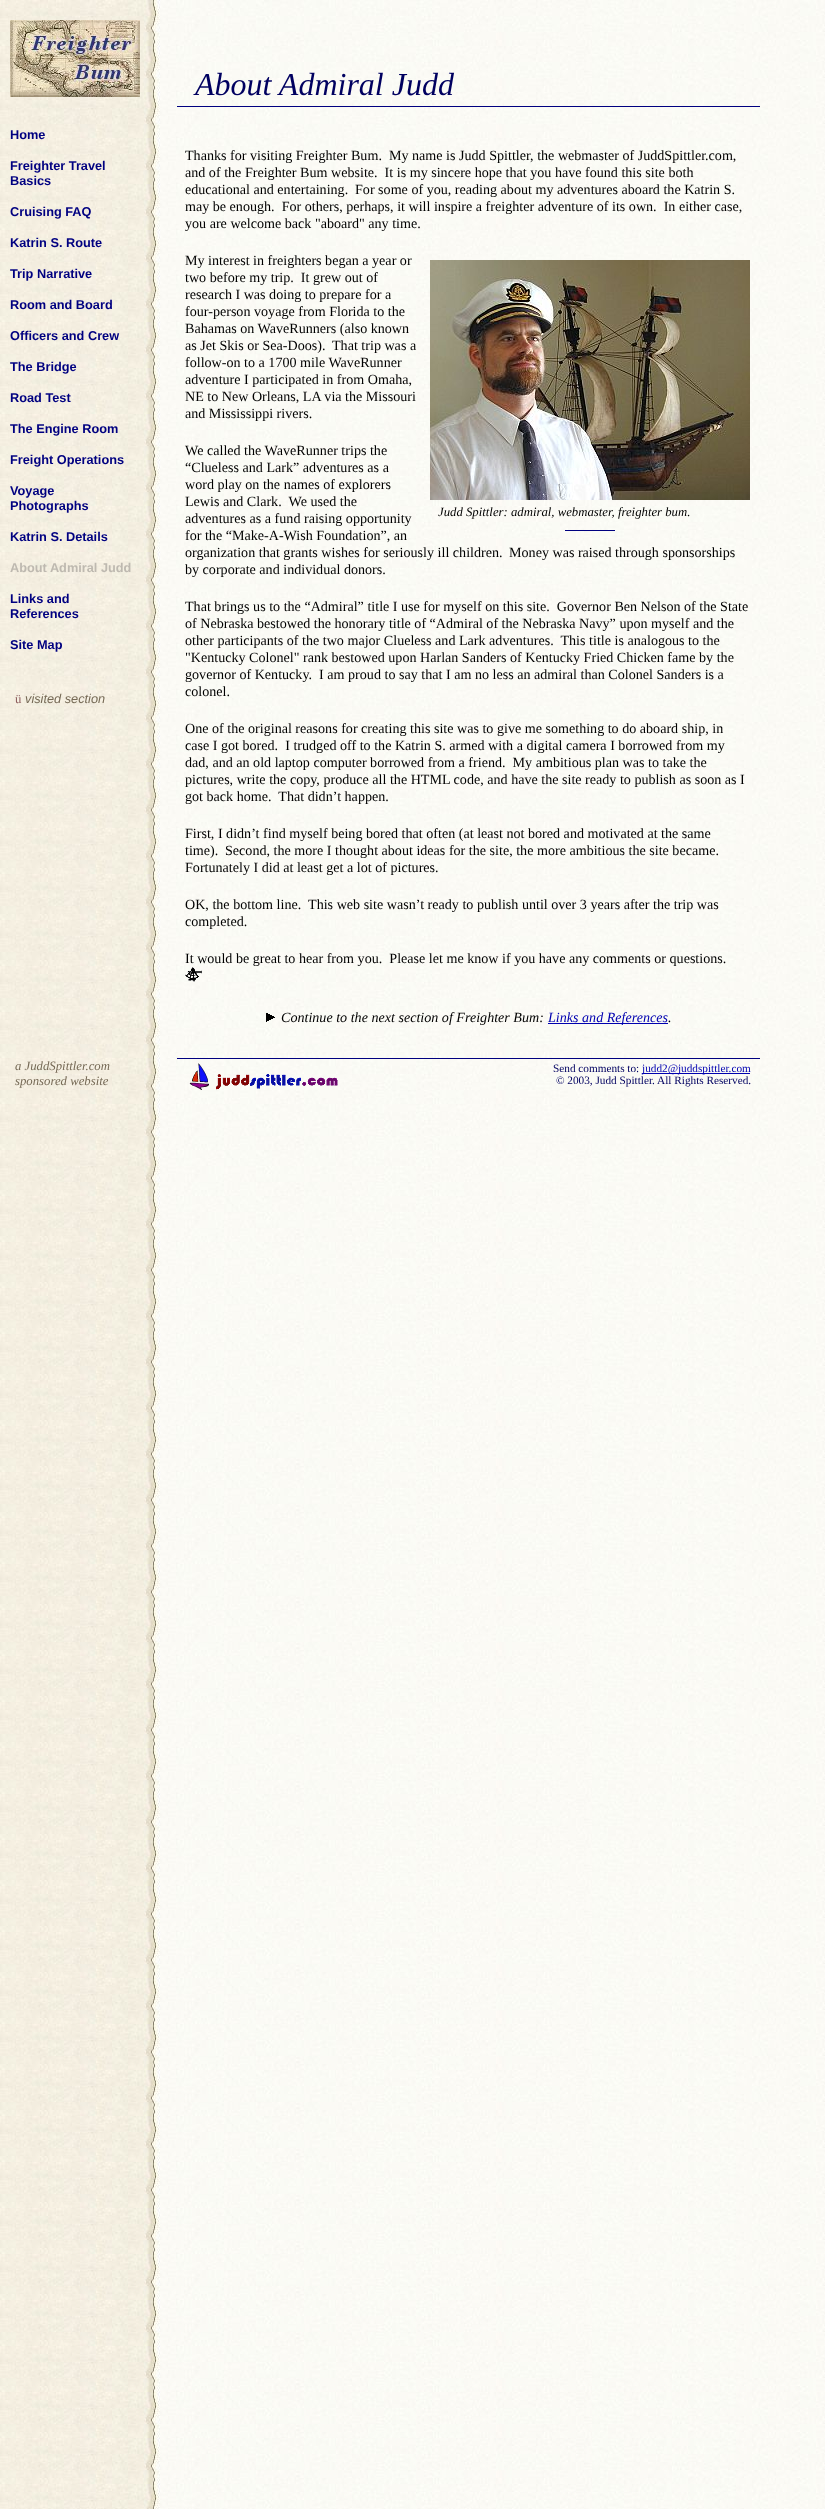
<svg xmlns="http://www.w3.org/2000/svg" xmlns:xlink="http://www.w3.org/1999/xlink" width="825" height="2509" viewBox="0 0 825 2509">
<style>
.cls-1{font:italic 32px Liberation Serif;fill:#000060}
.cls-2{font:bold 12.75px Liberation Sans;fill:#000080}
.cls-3{font:bold 12.75px Liberation Sans;fill:#beb9b0}
.cls-4{font:12.75px Liberation Serif;fill:#8b5a5a}
.cls-5{font:italic 12.75px Liberation Sans;fill:#756955}
.cls-6{font:14.1px Liberation Serif;fill:#000000}
.cls-7{font:italic 12.75px Liberation Serif;fill:#000000}
.cls-8{font:italic 14.1px Liberation Serif;fill:#000000}
.cls-9{font:italic 14.1px Liberation Serif;fill:#0000b0}
.cls-10{font:italic 12.75px Liberation Serif;fill:#756955}
.cls-11{font:11.25px Liberation Serif;fill:#000060}
.cls-12{font:11.25px Liberation Serif;fill:#0000b0}
</style>
<rect width="100%" height="100%" fill="#ffffff"/>
<image xlink:href="image0.png" x="0" y="0" width="825" height="2509"/>
<image xlink:href="image1.png" x="10" y="20" width="130" height="77"/>
<rect fill="#000080" x="177" y="106" width="583" height="1"/>
<image xlink:href="image2.png" x="430" y="260" width="320" height="240"/>
<rect fill="#000080" x="565" y="530" width="50" height="1"/>
<image xlink:href="image3.png" x="185" y="967" width="17" height="15"/>
<image xlink:href="image4.png" x="266" y="1013" width="9" height="9"/>
<rect fill="#0000b0" x="548" y="1023" width="120" height="1"/>
<rect fill="#000080" x="177" y="1058" width="583" height="1"/>
<image xlink:href="image5.png" x="189" y="1063" width="149" height="27"/>
<rect fill="#0000b0" x="642" y="1073" width="108" height="1"/>
<text class="cls-1" x="195" y="95">About Admiral Judd</text>
<text class="cls-2" x="10" y="139">Home</text>
<text class="cls-2"><tspan x="10" y="170">Freighter Travel</tspan><tspan x="10" y="185">Basics</tspan></text>
<text class="cls-2" x="10" y="216">Cruising FAQ</text>
<text class="cls-2" x="10" y="247">Katrin S. Route</text>
<text class="cls-2" x="10" y="278">Trip Narrative</text>
<text class="cls-2" x="10" y="309">Room and Board</text>
<text class="cls-2" x="10" y="340">Officers and Crew</text>
<text class="cls-2" x="10" y="371">The Bridge</text>
<text class="cls-2" x="10" y="402">Road Test</text>
<text class="cls-2" x="10" y="433">The Engine Room</text>
<text class="cls-2" x="10" y="464">Freight Operations</text>
<text class="cls-2"><tspan x="10" y="495">Voyage</tspan><tspan x="10" y="510">Photographs</tspan></text>
<text class="cls-2" x="10" y="541">Katrin S. Details</text>
<text class="cls-3" x="10" y="572">About Admiral Judd</text>
<text class="cls-2"><tspan x="10" y="603">Links and</tspan><tspan x="10" y="618">References</tspan></text>
<text class="cls-2" x="10" y="649">Site Map</text>
<text class="cls-4" x="15" y="703">ü</text>
<text class="cls-5" x="25" y="703">visited section</text>
<text class="cls-6" xml:space="preserve"><tspan x="185" y="160">Thanks for visiting Freighter Bum.  My name is Judd Spittler, the webmaster of JuddSpittler.com,</tspan><tspan x="185" y="177">and of the Freighter Bum website.  It is my sincere hope that you have found this site both</tspan><tspan x="185" y="194">educational and entertaining.</tspan></text>
<text class="cls-6" x="355" y="194">For some of you, reading about my adventures aboard the Katrin S.</text>
<text class="cls-6" xml:space="preserve"><tspan x="185" y="211">may be enough.  For others, perhaps, it will inspire a freighter adventure of its own.  In either case,</tspan><tspan x="185" y="228">you are welcome back "aboard" any time.</tspan></text>
<text class="cls-6" xml:space="preserve"><tspan x="185" y="265">My interest in freighters began a year or</tspan><tspan x="185" y="282">two before my trip.  It grew out of</tspan><tspan x="185" y="299">research I was doing to prepare for a</tspan><tspan x="185" y="316">four-person voyage from Florida to the</tspan><tspan x="185" y="333">Bahamas on WaveRunners (also known</tspan><tspan x="185" y="350">as Jet Skis or Sea-Doos).</tspan></text>
<text class="cls-6" x="332" y="350">That trip was a</text>
<text class="cls-6"><tspan x="185" y="367">follow-on to a 1700 mile WaveRunner</tspan><tspan x="185" y="384">adventure I participated in from Omaha,</tspan><tspan x="185" y="401">NE to New Orleans, LA via the Missouri</tspan><tspan x="185" y="418">and Mississippi rivers.</tspan></text>
<text class="cls-6" xml:space="preserve"><tspan x="185" y="455">We called the WaveRunner trips the</tspan><tspan x="185" y="472">“Clueless and Lark” adventures as a</tspan><tspan x="185" y="489">word play on the names of explorers</tspan><tspan x="185" y="506">Lewis and Clark.  We used the</tspan><tspan x="185" y="523">adventures as a fund raising opportunity</tspan><tspan x="185" y="540">for the “Make-A-Wish Foundation”, an</tspan><tspan x="185" y="557">organization that grants wishes for seriously ill children.</tspan></text>
<text class="cls-6" x="509" y="557">Money was raised through sponsorships</text>
<text class="cls-6" x="185" y="574">by corporate and individual donors.</text>
<text class="cls-7" x="438" y="516">Judd Spittler: admiral, webmaster, freighter bum.</text>
<text class="cls-6" xml:space="preserve"><tspan x="185" y="611">That brings us to the “Admiral” title I use for myself on this site.  Governor Ben Nelson of the State</tspan><tspan x="185" y="628">of Nebraska bestowed the honorary title of “Admiral of the Nebraska Navy” upon myself and the</tspan><tspan x="185" y="645">other participants of the two major Clueless and Lark adventures.  This title is analogous to the</tspan><tspan x="185" y="662">"Kentucky Colonel" rank bestowed upon Harlan Sanders of Kentucky Fried Chicken fame by the</tspan><tspan x="185" y="679">governor of Kentucky.  I am proud to say that I am no less an admiral than Colonel Sanders is a</tspan><tspan x="185" y="696">colonel.</tspan></text>
<text class="cls-6" xml:space="preserve"><tspan x="185" y="733">One of the original reasons for creating this site was to give me something to do aboard ship, in</tspan><tspan x="185" y="750">case I got bored.  I trudged off to the Katrin S. armed with a digital camera I borrowed from my</tspan><tspan x="185" y="767">dad, and an old laptop computer borrowed from a friend.  My ambitious plan was to take the</tspan><tspan x="185" y="784">pictures, write the copy, produce all the HTML code, and have the site ready to publish as soon as I</tspan><tspan x="185" y="801">got back home.  That didn’t happen.</tspan></text>
<text class="cls-6"><tspan x="185" y="838">First, I didn’t find myself being bored that often (at least not bored and motivated at the same</tspan><tspan x="185" y="855">time).</tspan></text>
<text class="cls-6" x="225" y="855">Second, the more I thought about ideas for the site, the more ambitious the site became.</text>
<text class="cls-6" x="185" y="872">Fortunately I did at least get a lot of pictures.</text>
<text class="cls-6" xml:space="preserve"><tspan x="185" y="909">OK, the bottom line.  This web site wasn’t ready to publish until over 3 years after the trip was</tspan><tspan x="185" y="926">completed.</tspan></text>
<text class="cls-6" xml:space="preserve" x="185" y="963">It would be great to hear from you.  Please let me know if you have any comments or questions.</text>
<text class="cls-8" x="281" y="1022">Continue to the next section of Freighter Bum:</text>
<text class="cls-9" x="548" y="1022">Links and References</text>
<text class="cls-8" x="668" y="1022">.</text>
<text class="cls-10"><tspan x="15" y="1070">a JuddSpittler.com</tspan><tspan x="15" y="1085">sponsored website</tspan></text>
<text class="cls-11" x="553" y="1072">Send comments to:</text>
<text class="cls-12" x="642" y="1072">judd2@juddspittler.com</text>
<text class="cls-11" x="556" y="1084">© 2003, Judd Spittler. All Rights Reserved.</text>
</svg>
